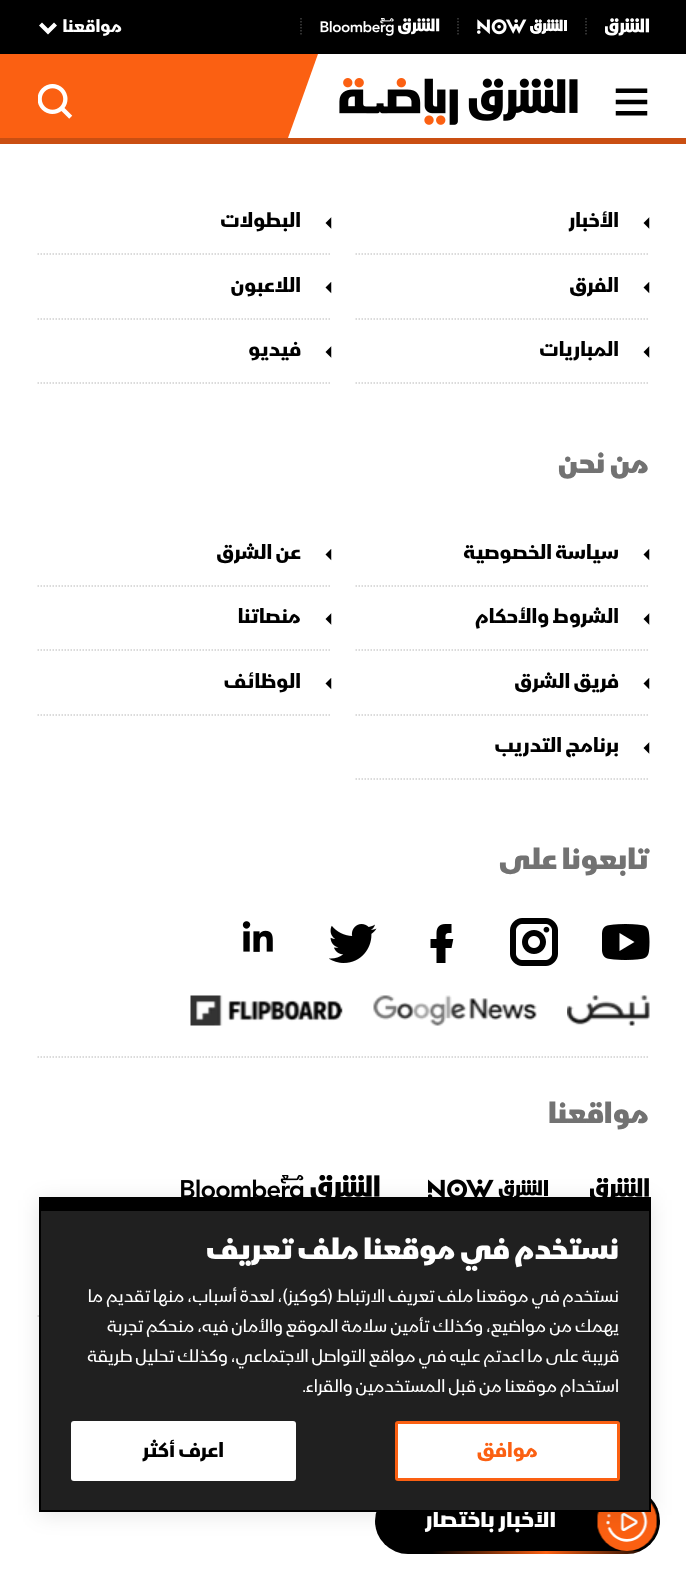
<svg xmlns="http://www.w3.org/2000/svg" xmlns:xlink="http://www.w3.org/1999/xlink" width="686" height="1572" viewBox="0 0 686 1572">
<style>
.cls-1{font:bold 18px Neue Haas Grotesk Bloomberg;direction:rtl;fill:#ffffff}
.cls-2{font:bold 21px Neue Haas Grotesk Bloomberg;direction:rtl;fill:#000000}
.cls-3{font:900 30px Neue Haas Grotesk Bloomberg;direction:rtl;fill:#727272}
.cls-4{font:bold 24px Neue Haas Grotesk Bloomberg;direction:rtl;fill:#ffffff}
.cls-5{font:bold 21px Neue Haas Grotesk Bloomberg;direction:rtl;fill:#fb6012}
.cls-6{font:18px Neue Haas Grotesk Bloomberg;direction:rtl;fill:#ffffff}
.cls-7{font:900 30px Neue Haas Grotesk Bloomberg;direction:rtl;fill:#ffffff}
</style>
<defs>
<clipPath id="clip1"><rect x="375" y="1488" width="285" height="66" rx="33"/></clipPath>
<linearGradient id="g1" gradientUnits="userSpaceOnUse" x1="432" y1="1553" x2="660" y2="1553"><stop offset="0" stop-color="#fb6012" stop-opacity="0"/><stop offset="0.5" stop-color="#fb6012"/><stop offset="1" stop-color="#fb6012" stop-opacity="0"/></linearGradient>
</defs>
<rect width="100%" height="100%" fill="#ffffff"/>
<rect fill="#fb6012" x="0" y="54" width="318" height="84"/>
<rect fill="#ca4f12" x="0" y="138" width="686" height="6"/>
<rect fill="#000000" x="0" y="0" width="686" height="54"/>
<path fill="none" stroke="#404040" stroke-width="1.5" stroke-dasharray="1.5 1.5" d="M586 18V36"/>
<image xlink:href="image0.png" x="605" y="18" width="45" height="18"/>
<path fill="none" stroke="#404040" stroke-width="1.5" stroke-dasharray="1.5 1.5" d="M458 18V36"/>
<image xlink:href="image1.png" x="477" y="19" width="90" height="16"/>
<path fill="none" stroke="#404040" stroke-width="1.5" stroke-dasharray="1.5 1.5" d="M301 18V36"/>
<image xlink:href="image2.png" x="320" y="18" width="120" height="18"/>
<path fill="#ffffff" fill-rule="evenodd" d="M42 22.5L39 25.5L48 34.5L57 25.5L54 22.5L48 28.5Z"/>
<path fill="#ffffff" d="M318 54H666L636 138H288Z"/>
<image xlink:href="image3.png" x="615" y="88" width="33" height="28"/>
<image xlink:href="image4.png" x="339" y="78" width="239" height="47"/>
<image xlink:href="image5.png" x="38" y="84" width="35" height="35"/>
<path fill="none" stroke="#d0d0d0" stroke-width="1.5" stroke-dasharray="1.5 1.5" d="M355.5 254H649.5"/>
<image xlink:href="image6.png" x="643" y="217" width="7" height="12"/>
<path fill="none" stroke="#d0d0d0" stroke-width="1.5" stroke-dasharray="1.5 1.5" d="M37.5 254H331.5"/>
<image xlink:href="image6.png" x="325" y="217" width="7" height="12"/>
<path fill="none" stroke="#d0d0d0" stroke-width="1.5" stroke-dasharray="1.5 1.5" d="M355.5 319H649.5"/>
<image xlink:href="image7.png" x="643" y="282" width="7" height="12"/>
<path fill="none" stroke="#d0d0d0" stroke-width="1.5" stroke-dasharray="1.5 1.5" d="M37.5 319H331.5"/>
<image xlink:href="image7.png" x="325" y="282" width="7" height="12"/>
<path fill="none" stroke="#d0d0d0" stroke-width="1.5" stroke-dasharray="1.5 1.5" d="M355.5 383H649.5"/>
<image xlink:href="image6.png" x="643" y="346" width="7" height="12"/>
<path fill="none" stroke="#d0d0d0" stroke-width="1.5" stroke-dasharray="1.5 1.5" d="M37.5 383H331.5"/>
<image xlink:href="image6.png" x="325" y="346" width="7" height="12"/>
<path fill="none" stroke="#d0d0d0" stroke-width="1.5" stroke-dasharray="1.5 1.5" d="M355.5 586H649.5"/>
<image xlink:href="image7.png" x="643" y="549" width="7" height="12"/>
<path fill="none" stroke="#d0d0d0" stroke-width="1.5" stroke-dasharray="1.5 1.5" d="M37.5 586H331.5"/>
<image xlink:href="image7.png" x="325" y="549" width="7" height="12"/>
<path fill="none" stroke="#d0d0d0" stroke-width="1.5" stroke-dasharray="1.5 1.5" d="M355.5 650H649.5"/>
<image xlink:href="image6.png" x="643" y="613" width="7" height="12"/>
<path fill="none" stroke="#d0d0d0" stroke-width="1.5" stroke-dasharray="1.5 1.5" d="M37.5 650H331.5"/>
<image xlink:href="image6.png" x="325" y="613" width="7" height="12"/>
<path fill="none" stroke="#d0d0d0" stroke-width="1.5" stroke-dasharray="1.5 1.5" d="M355.5 715H649.5"/>
<image xlink:href="image7.png" x="643" y="678" width="7" height="12"/>
<path fill="none" stroke="#d0d0d0" stroke-width="1.5" stroke-dasharray="1.5 1.5" d="M37.5 715H331.5"/>
<image xlink:href="image7.png" x="325" y="678" width="7" height="12"/>
<path fill="none" stroke="#d0d0d0" stroke-width="1.5" stroke-dasharray="1.5 1.5" d="M355.5 779H649.5"/>
<image xlink:href="image6.png" x="643" y="742" width="7" height="12"/>
<path fill="none" stroke="#d0d0d0" stroke-width="1.5" stroke-dasharray="1.5 1.5" d="M37.5 1057H649.5"/>
<image xlink:href="image8.png" x="602" y="924" width="48" height="36"/>
<image xlink:href="image9.png" x="510" y="918" width="48" height="48"/>
<image xlink:href="image10.png" x="430" y="924" width="24" height="39"/>
<image xlink:href="image11.png" x="329" y="924" width="48" height="39"/>
<image xlink:href="image12.png" x="242" y="921" width="31" height="31"/>
<image xlink:href="image13.png" x="567" y="995" width="83" height="31"/>
<image xlink:href="image14.png" x="373" y="995" width="164" height="31"/>
<image xlink:href="image15.png" x="190" y="995" width="153" height="31"/>
<path fill="none" stroke="#d0d0d0" stroke-width="1.5" stroke-dasharray="1.5 1.5" d="M37.5 1316H649.5"/>
<image xlink:href="image16.png" x="590" y="1178" width="59" height="19"/>
<image xlink:href="image17.png" x="428" y="1179" width="120" height="18"/>
<image xlink:href="image18.png" x="181" y="1175" width="199" height="22"/>
<rect fill="#000000" x="375" y="1488" width="285" height="66" rx="33"/>
<image xlink:href="image19.png" x="597" y="1499" width="60" height="52"/>
<rect fill="#000000" fill-opacity="0.1" filter="blur(10.5px)" x="39" y="1200" width="612" height="315"/>
<rect fill="#000000" x="41" y="1199" width="608" height="12"/>
<g clip-path="url(#clip1)">
<rect fill="url(#g1)" x="432" y="1551" width="208" height="3"/>
</g>
<text class="cls-1" x="122" y="32">مواقعنا</text>
<text class="cls-2" x="619" y="227">الأخبار</text>
<text class="cls-2" x="301" y="227">البطولات</text>
<text class="cls-2" x="619" y="292">الفرق</text>
<text class="cls-2" x="301" y="292">اللاعبون</text>
<text class="cls-2" x="619" y="356">المباريات</text>
<text class="cls-2" x="301" y="356">فيديو</text>
<text class="cls-3" x="649" y="473">من نحن</text>
<text class="cls-2" x="619" y="559">سياسة الخصوصية</text>
<text class="cls-2" x="301" y="559">عن الشرق</text>
<text class="cls-2" x="619" y="623">الشروط والأحكام</text>
<text class="cls-2" x="301" y="623">منصاتنا</text>
<text class="cls-2" x="619" y="688">فريق الشرق</text>
<text class="cls-2" x="301" y="688">الوظائف</text>
<text class="cls-2" x="619" y="752">برنامج التدريب</text>
<text class="cls-3" x="649" y="869">تابعونا على</text>
<text class="cls-3" x="649" y="1123">مواقعنا</text>
<text class="cls-4" x="556" y="1527">الأخبار باختصار</text>
<rect fill="#202020" x="41" y="1211" width="608" height="299"/>
<rect fill="none" stroke="#000000" stroke-width="2" x="40" y="1198" width="610" height="313"/>
<rect fill="#ffffff" x="71" y="1421" width="225" height="60" rx="3"/>
<text class="cls-2" x="224" y="1457">اعرف أكثر</text>
<rect fill="#ffffff" stroke="#fb6012" stroke-width="3" x="396.5" y="1422.5" width="222" height="57" rx="1.5"/>
<text class="cls-5" x="538" y="1457">موافق</text>
<text class="cls-6" x="619" y="1392">استخدام موقعنا من قبل المستخدمين والقراء.</text>
<text class="cls-6" x="619" y="1362">قريبة على ما اعدتم عليه في مواقع التواصل الاجتماعي، وكذلك تحليل طريقة</text>
<text class="cls-6" x="619" y="1332">يهمك من مواضيع، وكذلك تأمين سلامة الموقع والأمان فيه، منحكم تجربة</text>
<text class="cls-6" x="619" y="1302">نستخدم في موقعنا ملف تعريف الارتباط (كوكيز)، لعدة أسباب، منها تقديم ما</text>
<text class="cls-7" x="619" y="1259">نستخدم في موقعنا ملف تعريف</text>
</svg>
